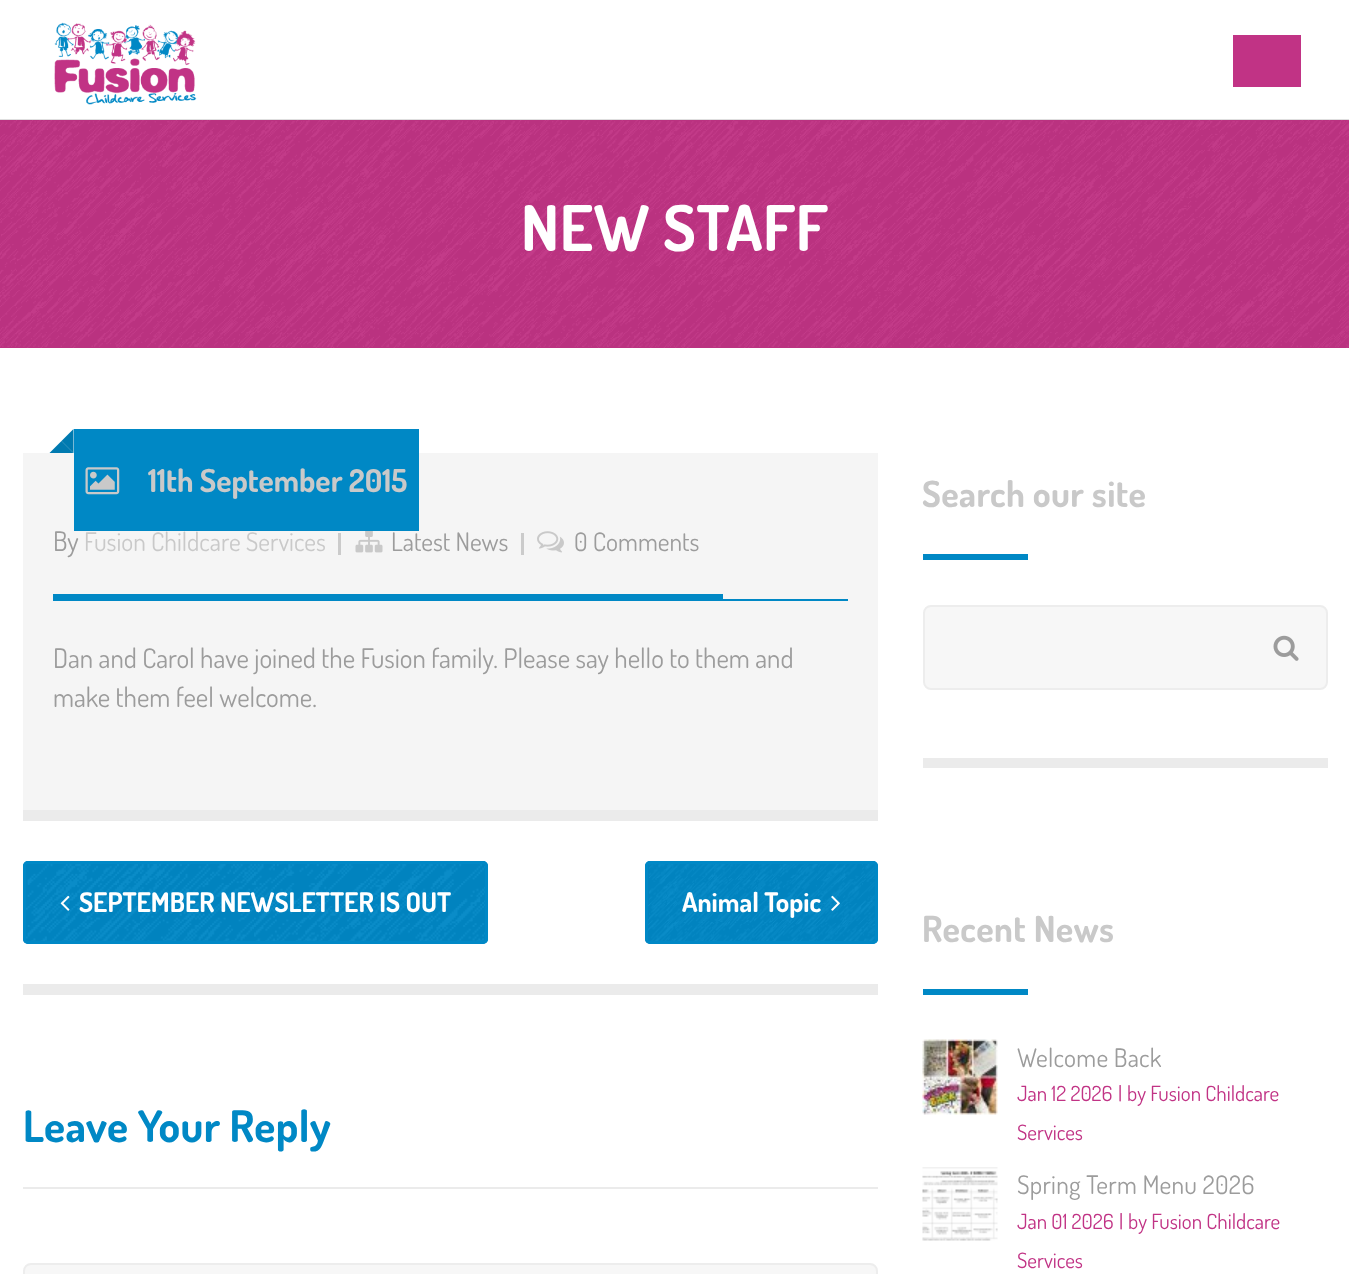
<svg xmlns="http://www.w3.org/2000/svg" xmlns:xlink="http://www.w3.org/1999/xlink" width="1349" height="1274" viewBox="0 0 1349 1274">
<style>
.cls-1{font:bold 63px Dosis;letter-spacing:0.6px;fill:#ffffff}
.cls-2{font:bold 31.5px Dosis;fill:#c9c9c9}
.cls-3{font:27px Dosis;fill:#9c9c9c}
.cls-4{font:25.5px Dosis;fill:#c9c9c9}
.cls-5{font:25.5px Dosis;fill:#9c9c9c}
.cls-6{font:bold 27px Dosis;fill:#ffffff}
.cls-7{font:bold 43.5px Dosis;letter-spacing:0.4px;fill:#0088c5}
.cls-8{font:bold 36px Dosis;letter-spacing:0.4px;fill:#c9c9c9}
.cls-9{font:25.5px Dosis;letter-spacing:0.25px;fill:#9c9c9c}
.cls-10{font:21px Dosis;fill:#c13385}
</style>
<rect width="100%" height="100%" fill="#ffffff"/>
<rect fill="#dedede" x="0" y="119" width="1349" height="1"/>
<image xlink:href="image0.png" x="54" y="22" width="143" height="83"/>
<rect fill="#c13385" x="1233" y="35" width="68" height="52"/>
<rect fill="#c13385" x="0" y="120" width="1349" height="228"/>
<image xlink:href="image1.png" x="0" y="120" width="1349" height="228"/>
<rect fill="#f5f5f5" x="23" y="453" width="855" height="357"/>
<rect fill="#ebebeb" x="23" y="810" width="855" height="11"/>
<rect fill="#0088c5" x="74" y="429" width="345" height="102"/>
<path fill="#0088c5" d="M73.5 429V453L61.5 441Z"/>
<path fill="#0088c5" d="M73.5 453H49.5L61.5 441Z"/>
<path fill="#000000" fill-opacity="0.1" d="M73.5 429V453L61.5 441Z"/>
<path fill="#000000" fill-opacity="0.1" d="M73.5 453H49.5L61.5 441Z"/>
<image xlink:href="image2.png" x="85" y="467" width="35" height="28"/>
<rect fill="#0088c5" x="53" y="599" width="795" height="2"/>
<rect fill="#cbcbcb" x="338" y="533" width="3" height="22"/>
<image xlink:href="image3.png" x="355" y="531" width="28" height="22"/>
<rect fill="#cbcbcb" x="521" y="533" width="3" height="22"/>
<image xlink:href="image4.png" x="537" y="531" width="27" height="22"/>
<rect fill="#0088c5" x="53" y="594" width="670" height="5"/>
<rect fill="#ebebeb" x="23" y="984" width="855" height="11"/>
<rect fill="#0088c6" x="23" y="861" width="465" height="83" rx="5"/>
<image xlink:href="image5.png" x="23" y="861" width="462" height="82"/>
<rect fill="none" stroke="#0088c6" stroke-width="3" x="24.5" y="862.5" width="462" height="80" rx="3.5"/>
<image xlink:href="image6.png" x="60" y="895" width="10" height="16"/>
<rect fill="#0088c6" x="645" y="861" width="233" height="83" rx="5"/>
<image xlink:href="image7.png" x="645" y="861" width="230" height="80"/>
<rect fill="none" stroke="#0088c6" stroke-width="3" x="646.5" y="862.5" width="230" height="80" rx="3.5"/>
<image xlink:href="image8.png" x="831" y="895" width="9" height="16"/>
<rect fill="#ebebeb" x="23" y="1187" width="855" height="2"/>
<rect fill="#f7f7f7" stroke="#ededed" stroke-width="2" x="24" y="1264" width="853" height="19" rx="7"/>
<rect fill="#ebebeb" x="923" y="758" width="405" height="10"/>
<rect fill="#0088c5" x="923" y="554" width="105" height="6"/>
<rect fill="#f7f7f7" stroke="#ededed" stroke-width="2" x="924" y="606" width="403" height="83" rx="7"/>
<image xlink:href="image9.png" x="1273" y="635" width="26" height="26"/>
<rect fill="#0088c5" x="923" y="989" width="105" height="6"/>
<image xlink:href="image10.png" x="922" y="1039" width="76" height="76"/>
<image xlink:href="image11.png" x="922" y="1167" width="76" height="74"/>
<text class="cls-1" x="521" y="251">NEW STAFF</text>
<text class="cls-2" x="148" y="492">11th September 2015</text>
<text class="cls-3" x="53" y="551">By</text>
<text class="cls-4" x="84" y="551">Fusion Childcare Services</text>
<text class="cls-5" x="391" y="551">Latest News</text>
<text class="cls-5" x="574" y="551">0 Comments</text>
<text class="cls-3"><tspan x="53" y="668">Dan and Carol have joined the Fusion family. Please say hello to them and</tspan><tspan x="53" y="707">make them feel welcome.</tspan></text>
<text class="cls-6" x="79" y="912">SEPTEMBER NEWSLETTER IS OUT</text>
<text class="cls-6" x="682" y="912">Animal Topic</text>
<text class="cls-7" x="23" y="1142">Leave Your Reply</text>
<text class="cls-8" x="922" y="507">Search our site</text>
<text class="cls-8" x="922" y="942">Recent News</text>
<text class="cls-9" x="1017" y="1067">Welcome Back</text>
<text class="cls-10" x="1017" y="1101">Jan 12 2026</text>
<text class="cls-10" x="1118" y="1101">|</text>
<text class="cls-10" x="1127" y="1101">by Fusion Childcare</text>
<text class="cls-10" x="1017" y="1140">Services</text>
<text class="cls-9" x="1017" y="1194">Spring Term Menu 2026</text>
<text class="cls-10" x="1017" y="1229">Jan 01 2026</text>
<text class="cls-10" x="1119" y="1229">|</text>
<text class="cls-10" x="1128" y="1229">by Fusion Childcare</text>
<text class="cls-10" x="1017" y="1268">Services</text>
</svg>
